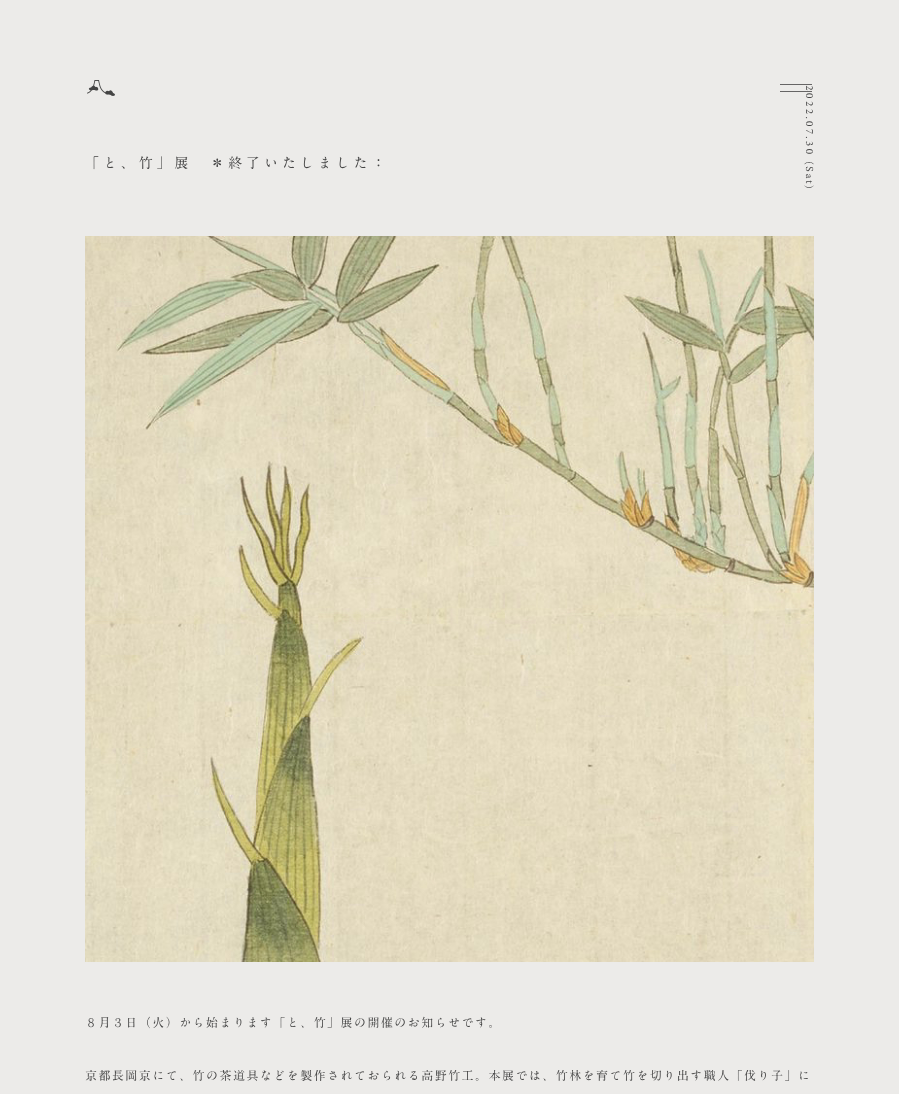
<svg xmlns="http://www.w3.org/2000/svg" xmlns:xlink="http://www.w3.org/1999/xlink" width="899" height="1094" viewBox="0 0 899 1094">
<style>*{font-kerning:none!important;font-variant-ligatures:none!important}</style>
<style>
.cls-1{font:11px Amiri;letter-spacing:2px;fill:#464646}
.cls-2{font:14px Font;letter-spacing:3.9px;fill:#464646}
.cls-3{font:12px Font;letter-spacing:1.45px;fill:#464646}
</style>
<rect width="100%" height="100%" fill="#ecebe9"/>
<image xlink:href="image0.png" x="87" y="80" width="28" height="16"/>
<rect fill="#666565" x="780" y="84" width="32" height="1"/>
<image xlink:href="image1.png" x="85" y="236" width="729" height="726"/>
<text class="cls-1" x="806" y="85" transform="rotate(90 806 85)">2022.07.30 (Sat)</text>
<rect fill="#666565" x="780" y="91" width="32" height="1"/>
<text class="cls-2" x="85" y="168">「と、竹」展　＊終了いたしました：</text>
<text class="cls-3" x="85" y="1027">８月３日（火）から始まります「と、竹」展の開催のお知らせです。</text>
<text class="cls-3" x="85" y="1080">京都長岡京にて、竹の茶道具などを製作されておられる高野竹工。本展では、竹林を育て竹を切り出す職人「伐り子」に</text>
</svg>
